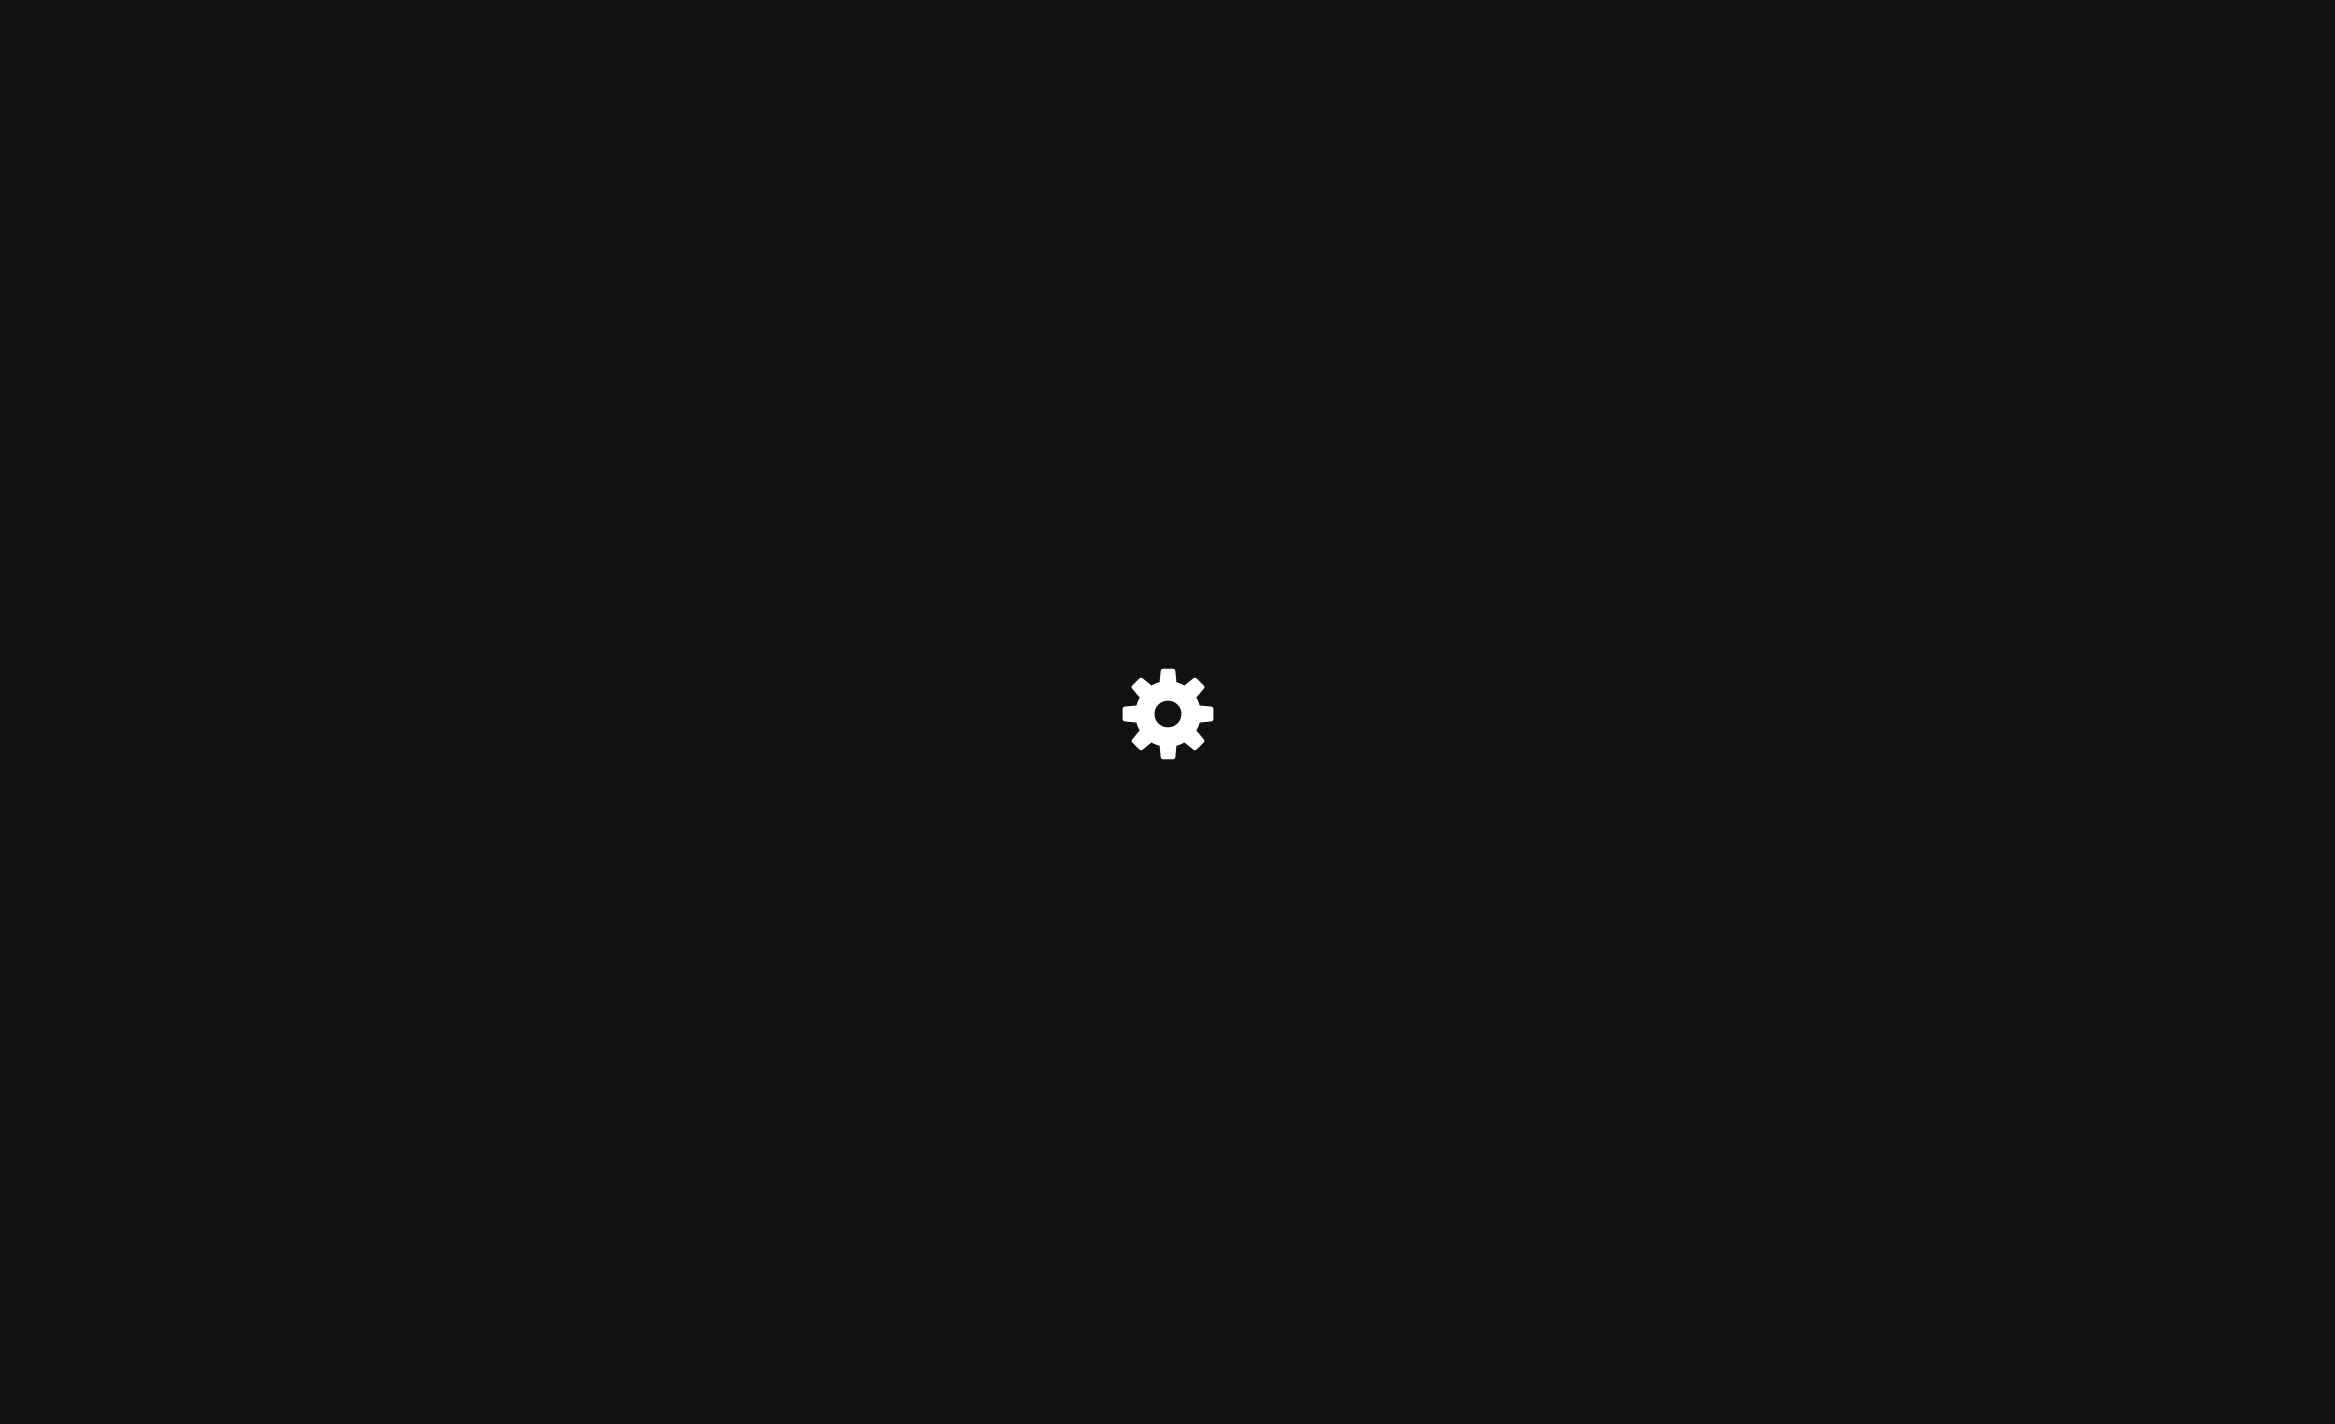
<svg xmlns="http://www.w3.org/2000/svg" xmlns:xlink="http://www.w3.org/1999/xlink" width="2335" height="1424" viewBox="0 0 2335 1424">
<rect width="100%" height="100%" fill="#111111"/>
<image xlink:href="image0.png" x="1122" y="668" width="92" height="92"/>
</svg>
